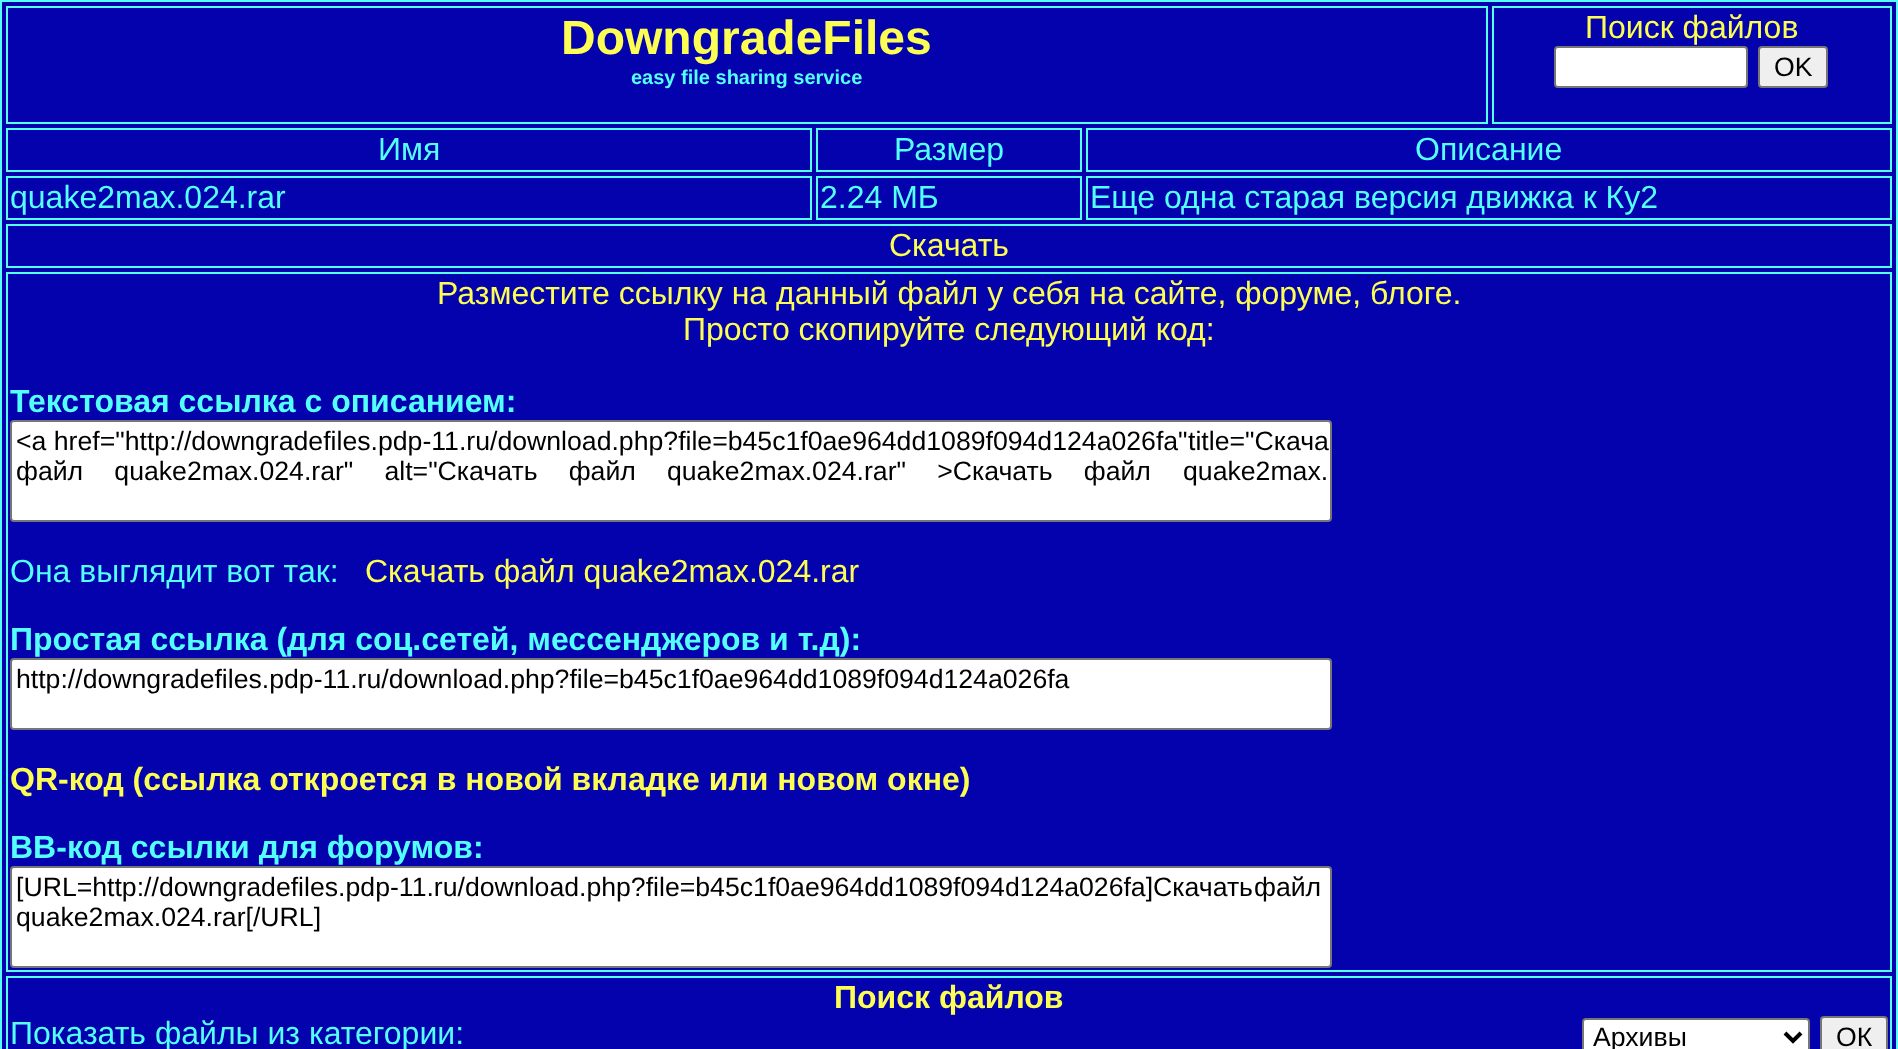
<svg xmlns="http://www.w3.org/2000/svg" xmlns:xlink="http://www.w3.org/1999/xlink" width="1898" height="1049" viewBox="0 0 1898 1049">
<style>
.cls-1{font:bold 48px Liberation Sans;fill:#fcfe54}
.cls-2{font:bold 20px Liberation Sans;fill:#54fefc}
.cls-3{font:32px Liberation Sans;fill:#fcfe54}
.cls-4{font:26.65px Liberation Sans;fill:#000000}
.cls-5{font:32px Liberation Sans;fill:#54fefc}
.cls-6{font:bold 32px Liberation Sans;fill:#54fefc}
.cls-7{font:bold 32px Liberation Sans;fill:#fcfe54}
</style>
<rect width="100%" height="100%" fill="#0402ac"/>
<rect fill="none" stroke="#54fefc" stroke-width="2" x="1" y="1" width="1896" height="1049"/>
<rect fill="none" stroke="#54fefc" stroke-width="2" x="7" y="7" width="1480" height="116"/>
<rect fill="none" stroke="#54fefc" stroke-width="2" x="1493" y="7" width="398" height="116"/>
<rect fill="#ffffff" stroke="#767676" stroke-width="2" x="1555" y="47" width="192" height="40" rx="3"/>
<rect fill="#efefef" stroke="#767676" stroke-width="2" x="1759" y="47" width="68" height="40" rx="3"/>
<rect fill="none" stroke="#54fefc" stroke-width="2" x="7" y="129" width="804" height="42"/>
<rect fill="none" stroke="#54fefc" stroke-width="2" x="817" y="129" width="264" height="42"/>
<rect fill="none" stroke="#54fefc" stroke-width="2" x="1087" y="129" width="804" height="42"/>
<rect fill="none" stroke="#54fefc" stroke-width="2" x="7" y="177" width="804" height="42"/>
<rect fill="none" stroke="#54fefc" stroke-width="2" x="817" y="177" width="264" height="42"/>
<rect fill="none" stroke="#54fefc" stroke-width="2" x="1087" y="177" width="804" height="42"/>
<rect fill="none" stroke="#54fefc" stroke-width="2" x="7" y="225" width="1884" height="42"/>
<rect fill="none" stroke="#54fefc" stroke-width="2" x="7" y="273" width="1884" height="698"/>
<rect fill="#ffffff" stroke="#767676" stroke-width="2" x="11" y="421" width="1320" height="100" rx="3"/>
<rect fill="#ffffff" stroke="#767676" stroke-width="2" x="11" y="659" width="1320" height="70" rx="3"/>
<rect fill="#ffffff" stroke="#767676" stroke-width="2" x="11" y="867" width="1320" height="100" rx="3"/>
<rect fill="none" stroke="#54fefc" stroke-width="2" x="7" y="977" width="1884" height="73"/>
<rect fill="#ffffff" stroke="#767676" stroke-width="2" x="1583" y="1019" width="226" height="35" rx="3"/>
<path fill="none" stroke="#000000" stroke-width="4" d="M1785 1033L1793 1041L1801 1033"/>
<rect fill="#efefef" stroke="#767676" stroke-width="2" x="1821" y="1017" width="66" height="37" rx="3"/>
<text class="cls-1" x="561" y="54">DowngradeFiles</text>
<text class="cls-2" x="631" y="84">easy file sharing service</text>
<text class="cls-3" x="1585" y="38">Поиск файлов</text>
<text class="cls-4" x="1774" y="76">OK</text>
<text class="cls-5" x="378" y="160">Имя</text>
<text class="cls-5" x="894" y="160">Размер</text>
<text class="cls-5" x="1415" y="160">Описание</text>
<text class="cls-5" x="10" y="208">quake2max.024.rar</text>
<text class="cls-5" x="820" y="208">2.24 МБ</text>
<text class="cls-5" x="1090" y="208">Еще одна старая версия движка к Ку2</text>
<text class="cls-3" x="889" y="256">Скачать</text>
<text class="cls-3" x="437" y="304">Разместите ссылку на данный файл у себя на сайте, форуме, блоге.</text>
<text class="cls-3" x="683" y="340">Просто скопируйте следующий код:</text>
<text class="cls-6" x="10" y="412">Текстовая ссылка с описанием:</text>
<text class="cls-4" x="16" y="450">&lt;a href="http://downgradefiles.pdp-11.ru/download.php?file=b45c1f0ae964dd1089f094d124a026fa"</text>
<text class="cls-4" x="1188" y="450">title="Скача</text>
<text class="cls-4" x="16" y="480" word-spacing="23.75">файл quake2max.024.rar" alt="Скачать файл quake2max.024.rar" &gt;Скачать файл</text>
<text class="cls-4" x="1183" y="480">quake2max.</text>
<text class="cls-5" x="10" y="582">Она выглядит вот так:</text>
<text class="cls-3" x="365" y="582">Скачать файл quake2max.024.rar</text>
<text class="cls-6" x="10" y="650">Простая ссылка (для соц.сетей, мессенджеров и т.д):</text>
<text class="cls-4" x="16" y="688">http://downgradefiles.pdp-11.ru/download.php?file=b45c1f0ae964dd1089f094d124a026fa</text>
<text class="cls-7" x="10" y="790">QR-код (ссылка откроется в новой вкладке или новом окне)</text>
<text class="cls-6" x="10" y="858">BB-код ссылки для форумов:</text>
<text class="cls-4" x="16" y="896">[URL=http://downgradefiles.pdp-11.ru/download.php?file=b45c1f0ae964dd1089f094d124a026fa]Скачать</text>
<text class="cls-4" x="1254" y="896">файл</text>
<text class="cls-4" x="16" y="926">quake2max.024.rar[/URL]</text>
<text class="cls-7" x="834" y="1008">Поиск файлов</text>
<text class="cls-5" x="10" y="1044">Показать файлы из категории:</text>
<text class="cls-4" x="1593" y="1046">Архивы</text>
<text class="cls-4" x="1836" y="1046">ОК</text>
</svg>
